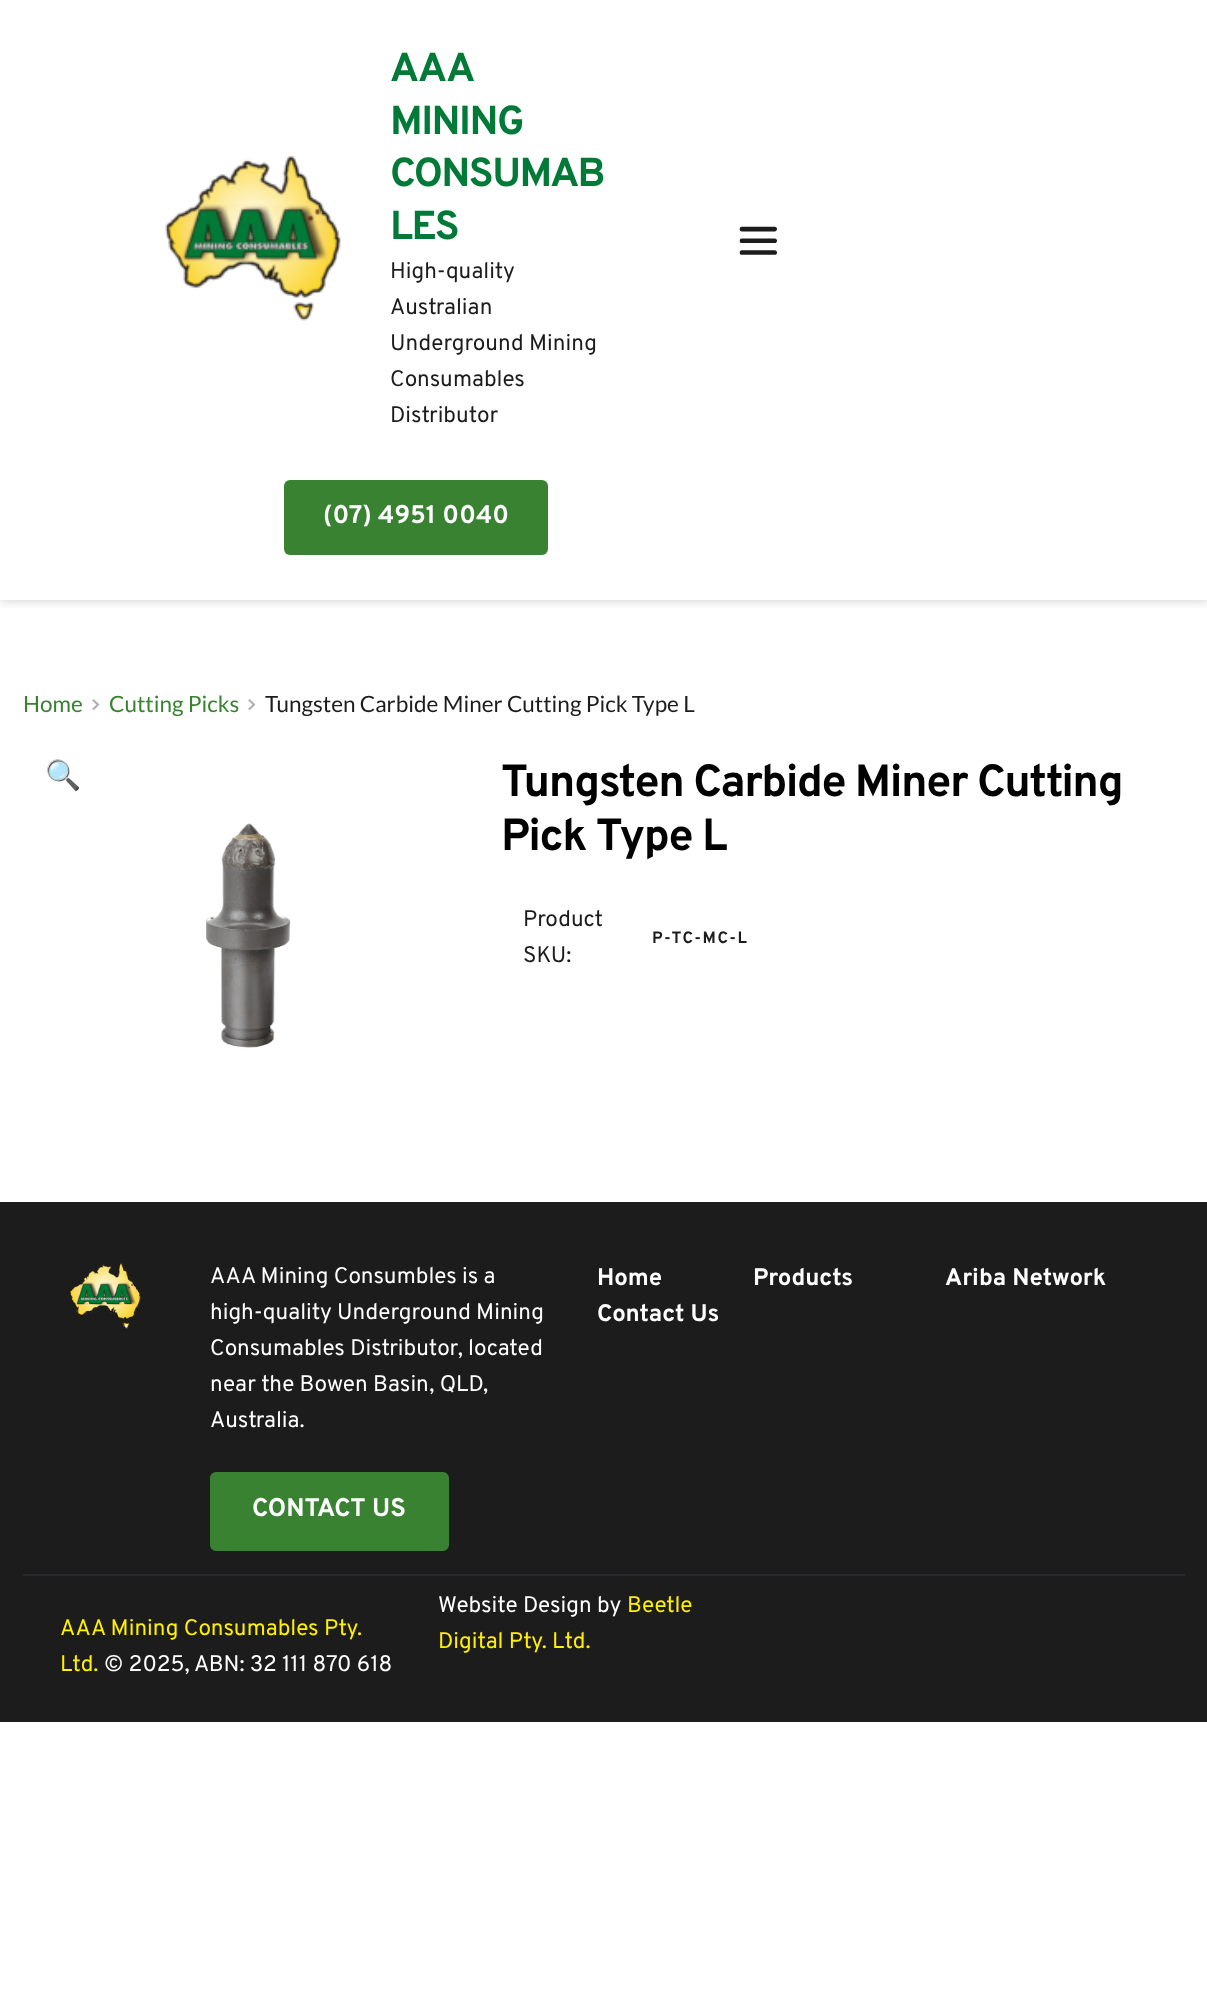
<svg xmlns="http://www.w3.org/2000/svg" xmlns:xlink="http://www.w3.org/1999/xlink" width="1207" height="1996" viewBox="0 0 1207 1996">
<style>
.cls-1{font:bold 40.5px Overpass;letter-spacing:-1.5px;fill:#017a37}
.cls-2{font:22.5px Overpass;fill:#1c1c1c}
.cls-3{font:bold 25.5px Overpass;fill:#ffffff}
.cls-4{font:22.5px Lato;fill:#388232}
.cls-5{font:22.5px Lato;fill:#1c1c1c}
.cls-6{font:29px Noto Color Emoji;fill:#8bc34a}
.cls-7{font:bold 45px Overpass;letter-spacing:-1.5px;fill:#000000}
.cls-8{font:bold 16.5px Overpass;letter-spacing:1.5px;fill:#1c1c1c}
.cls-9{font:22.5px Overpass;fill:#ffffff}
.cls-10{font:bold 24px Overpass;fill:#ffffff}
.cls-11{font:22.5px Overpass;fill:#fff000}
</style>
<defs>
<clipPath id="clip1"><rect x="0" y="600" width="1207" height="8"/></clipPath>
</defs>
<rect width="100%" height="100%" fill="#ffffff"/>
<g clip-path="url(#clip1)">
<rect fill="#000000" fill-opacity="0.15" filter="blur(5px)" x="0" y="2" width="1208" height="600"/>
</g>
<image xlink:href="image0.png" x="165" y="155" width="176" height="166"/>
<image xlink:href="image1.png" x="739" y="226" width="38" height="29"/>
<rect fill="#388232" x="284" y="480" width="264" height="75" rx="6"/>
<image xlink:href="image2.png" x="92" y="699" width="8" height="12"/>
<image xlink:href="image2.png" x="248" y="699" width="8" height="12"/>
<image xlink:href="image3.png" x="206" y="823" width="85" height="225"/>
<rect fill="#1c1c1c" x="0" y="1202" width="1207" height="520"/>
<image xlink:href="image4.png" x="70" y="1262" width="71" height="67"/>
<rect fill="#388232" stroke="#388232" stroke-width="3" x="211.5" y="1473.5" width="236" height="76" rx="4.5"/>
<rect fill="#27292d" x="23" y="1574" width="1162" height="2"/>
<text class="cls-1"><tspan x="390" y="81">AAA</tspan><tspan x="390" y="134">MINING</tspan><tspan x="390" y="186">CONSUMAB</tspan><tspan x="390" y="239">LES</tspan></text>
<text class="cls-2"><tspan x="390" y="278">High-quality</tspan><tspan x="390" y="314">Australian</tspan><tspan x="390" y="350">Underground Mining</tspan><tspan x="390" y="386">Consumables</tspan><tspan x="390" y="422">Distributor</tspan></text>
<text class="cls-3" x="323" y="523">(07) 4951 0040</text>
<text class="cls-4" x="23" y="712">Home</text>
<text class="cls-4" x="109" y="712">Cutting Picks</text>
<text class="cls-5" x="265" y="712">Tungsten Carbide Miner Cutting Pick Type L</text>
<text class="cls-6" x="45" y="785">🔍</text>
<text class="cls-7"><tspan x="501" y="796">Tungsten Carbide Miner Cutting</tspan><tspan x="501" y="850">Pick Type L</tspan></text>
<text class="cls-2"><tspan x="523" y="926">Product</tspan><tspan x="523" y="962">SKU:</tspan></text>
<text class="cls-8" x="652" y="943">P-TC-MC-L</text>
<text class="cls-9"><tspan x="210" y="1283">AAA Mining Consumbles is a</tspan><tspan x="210" y="1319">high-quality Underground Mining</tspan><tspan x="210" y="1355">Consumables Distributor, located</tspan><tspan x="210" y="1391">near the Bowen Basin, QLD,</tspan><tspan x="210" y="1427">Australia.</tspan></text>
<text class="cls-3" x="252" y="1516">CONTACT US</text>
<text class="cls-10" x="597" y="1285">Home</text>
<text class="cls-10" x="753" y="1285">Products</text>
<text class="cls-10" x="945" y="1285">Ariba Network</text>
<text class="cls-10" x="597" y="1321">Contact Us</text>
<text class="cls-11"><tspan x="60" y="1635">AAA Mining Consumables Pty.</tspan><tspan x="60" y="1671">Ltd.</tspan></text>
<text class="cls-9" x="104" y="1671">© 2025, ABN: 32 111 870 618</text>
<text class="cls-9" x="438" y="1612">Website Design by</text>
<text class="cls-11" x="627" y="1612">Beetle</text>
<text class="cls-11" x="438" y="1648">Digital Pty. Ltd.</text>
</svg>
